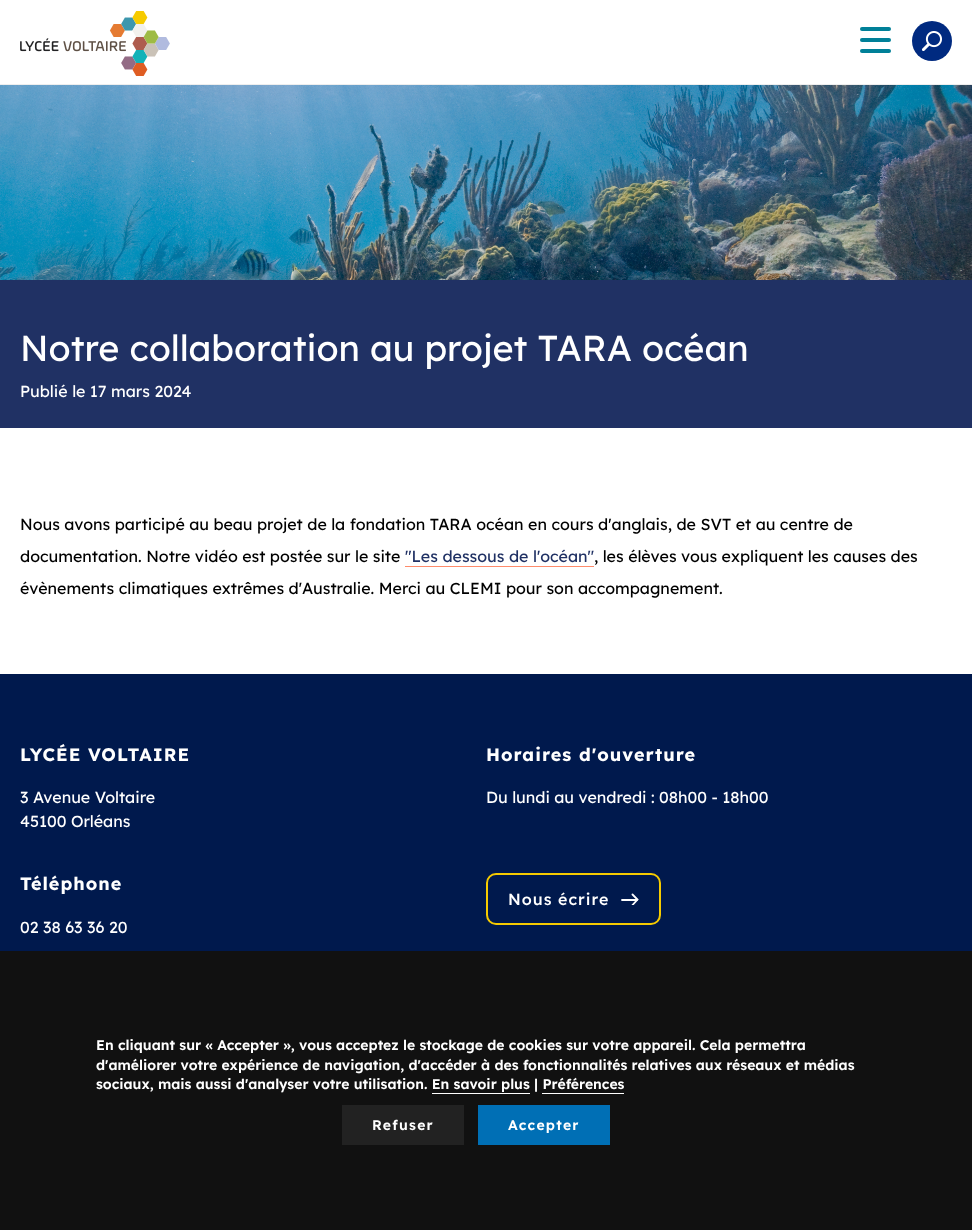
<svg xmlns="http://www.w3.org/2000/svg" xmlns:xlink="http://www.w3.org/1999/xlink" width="972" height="1230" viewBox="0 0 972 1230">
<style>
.cls-1{font:36px Lexend;fill:#ffffff}
.cls-2{font:16px Lexend;fill:#ffffff}
.cls-3{font:16px Lexend;fill:#000000}
.cls-4{font:16px Lexend;fill:#203164}
.cls-5{font:bold 18px Lexend;letter-spacing:1px;fill:#ffffff}
.cls-6{font:500 16px Lexend;letter-spacing:1px;fill:#ffffff}
.cls-7{font:600 14px Lexend;fill:#ffffff}
.cls-8{font:600 14px Lexend;letter-spacing:1.25px;fill:#ffffff}
</style>
<defs>
<clipPath id="clip1"><rect x="621" y="893" width="18" height="12"/></clipPath>
</defs>
<rect width="100%" height="100%" fill="#ffffff"/>
<rect fill="#eeeeee" x="0" y="84" width="972" height="1"/>
<image xlink:href="image0.png" x="20" y="11" width="150" height="65"/>
<rect fill="#008098" x="860" y="27" width="31" height="4" rx="2"/>
<rect fill="#008098" x="860" y="38" width="31" height="4" rx="2"/>
<rect fill="#008098" x="860" y="49" width="31" height="4" rx="2"/>
<circle fill="#002a80" cx="932" cy="41" r="20"/>
<image xlink:href="image1.png" x="922" y="31" width="20" height="20"/>
<image xlink:href="image2.png" x="0" y="85" width="972" height="195"/>
<rect fill="#203164" x="0" y="280" width="972" height="148"/>
<rect fill="#ff8b6b" x="405" y="566" width="189" height="1"/>
<rect fill="#00194d" x="0" y="674" width="972" height="277"/>
<rect fill="none" stroke="#f6cb00" stroke-width="2" x="487" y="874" width="173" height="50" rx="9"/>
<path fill="none" stroke="#ffffff" stroke-width="1.8" stroke-linecap="round" d="M622 900H637"/>
<g clip-path="url(#clip1)">
<path fill="none" stroke="#ffffff" stroke-width="1.8" stroke-linecap="round" d="M632.5 894.5L637.5 899.5L632.5 905"/>
</g>
<rect fill="#111111" x="0" y="951" width="972" height="279"/>
<rect fill="#ffffff" x="432" y="1093" width="98" height="1"/>
<rect fill="#ffffff" x="542" y="1093" width="82" height="1"/>
<rect fill="#222222" x="342" y="1105" width="122" height="40"/>
<rect fill="#006fb5" x="478" y="1105" width="132" height="40"/>
<text class="cls-1" x="20" y="361">Notre collaboration au projet TARA océan</text>
<text class="cls-2" x="20" y="397">Publié le 17 mars 2024</text>
<text class="cls-3" x="20" y="530">Nous avons participé au beau projet de la fondation TARA océan en cours d'anglais, de SVT et au centre de</text>
<text class="cls-3" x="20" y="562">documentation. Notre vidéo est postée sur le site</text>
<text class="cls-4" x="405" y="562">"Les dessous de l'océan"</text>
<text class="cls-3" x="594" y="562">, les élèves vous expliquent les causes des</text>
<text class="cls-3" x="20" y="594">évènements climatiques extrêmes d'Australie. Merci au CLEMI pour son accompagnement.</text>
<text class="cls-5" x="20" y="761">LYCÉE VOLTAIRE</text>
<text class="cls-2"><tspan x="20" y="803">3 Avenue Voltaire</tspan><tspan x="20" y="827">45100 Orléans</tspan></text>
<text class="cls-5" x="486" y="761">Horaires d'ouverture</text>
<text class="cls-2" x="486" y="803">Du lundi au vendredi : 08h00 - 18h00</text>
<text class="cls-5" x="20" y="890">Téléphone</text>
<text class="cls-2" x="20" y="933">02 38 63 36 20</text>
<text class="cls-6" x="508" y="905">Nous écrire</text>
<text class="cls-7"><tspan x="96" y="1050">En cliquant sur « Accepter », vous acceptez le stockage de cookies sur votre appareil. Cela permettra</tspan><tspan x="96" y="1070">d'améliorer votre expérience de navigation, d'accéder à des fonctionnalités relatives aux réseaux et médias</tspan><tspan x="96" y="1089">sociaux, mais aussi d'analyser votre utilisation. En savoir plus | Préférences</tspan></text>
<text class="cls-8" x="372" y="1130">Refuser</text>
<text class="cls-8" x="508" y="1130">Accepter</text>
</svg>
